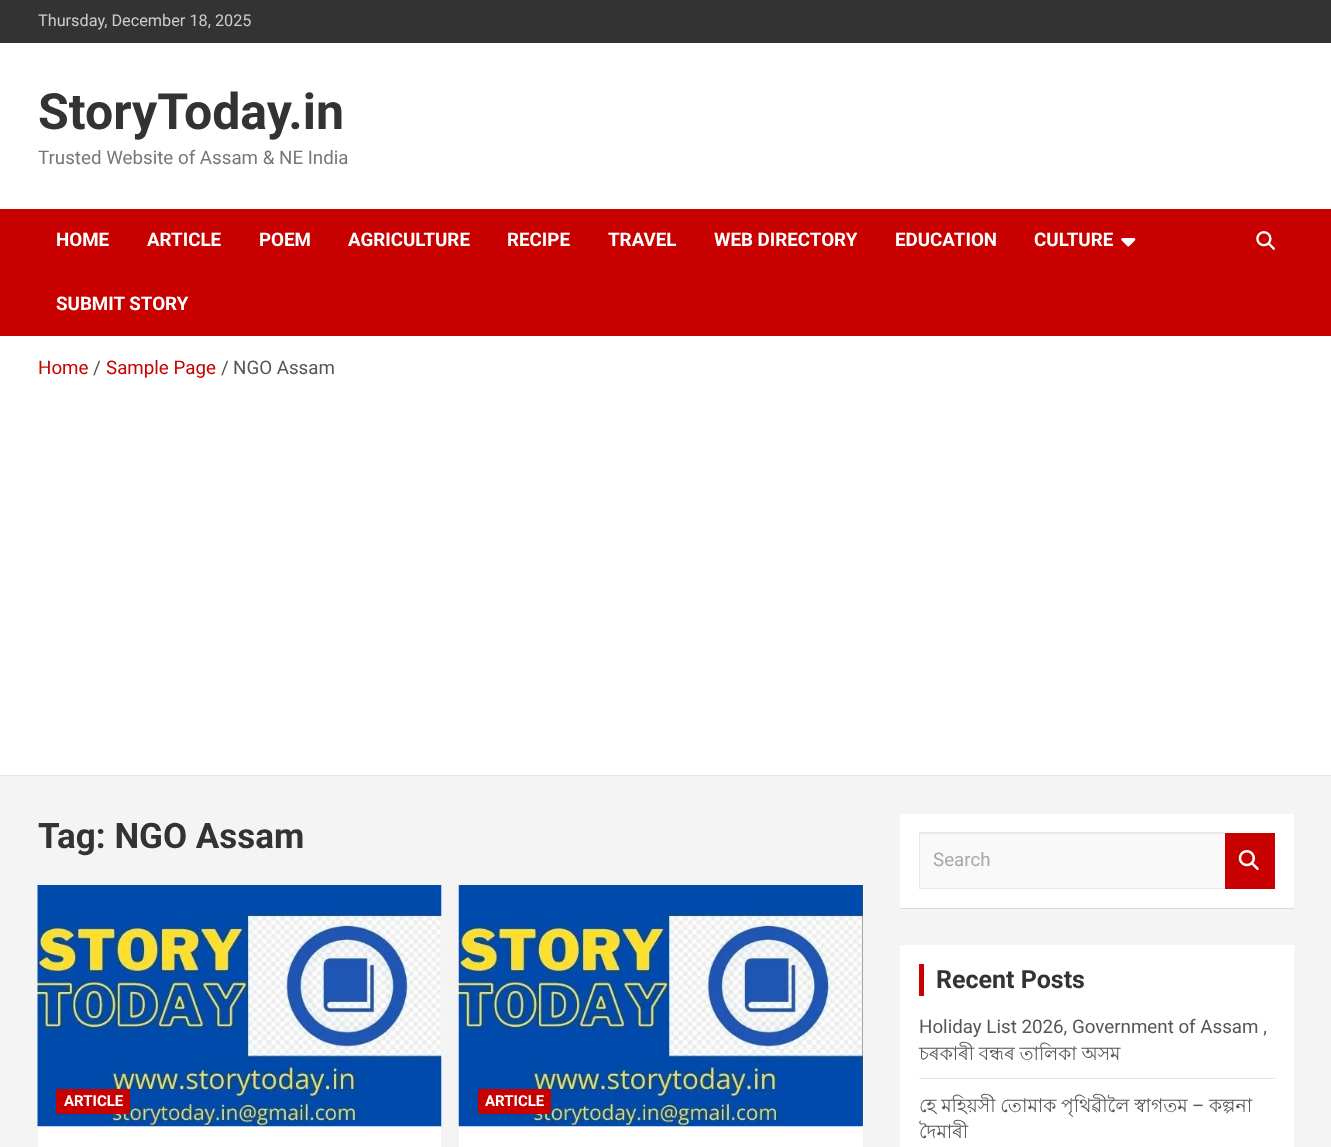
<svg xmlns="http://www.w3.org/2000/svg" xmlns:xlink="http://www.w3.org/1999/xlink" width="1331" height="1147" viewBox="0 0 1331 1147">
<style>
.cls-1{font:16.25px Roboto;fill:#cccccc}
.cls-2{font:bold 50px Roboto;fill:#333333}
.cls-3{font:18.75px Roboto;fill:#777777}
.cls-4{font:bold 18.75px Roboto;fill:#ffffff}
.cls-5{font:18.75px Roboto;fill:#c80000}
.cls-6{font:18.75px Roboto;fill:#555555}
.cls-7{font:bold 35px Roboto;fill:#333333}
.cls-8{font:bold 15px Roboto;fill:#ffffff}
.cls-9{font:18.75px Roboto;fill:#a7a7a7}
.cls-10{font:bold 25px Roboto;fill:#333333}
.cls-11{font:18.75px Lohit Bengali;fill:#555555}
</style>
<rect width="100%" height="100%" fill="#f4f4f4"/>
<rect fill="#333333" x="0" y="0" width="1331" height="43"/>
<rect fill="#ffffff" x="0" y="43" width="1331" height="166"/>
<rect fill="#c80000" x="0" y="209" width="1331" height="127"/>
<image xlink:href="image0.png" x="1121" y="238" width="15" height="9"/>
<image xlink:href="image1.png" x="1256" y="231" width="19" height="19"/>
<rect fill="#ffffff" x="0" y="336" width="1331" height="439"/>
<rect fill="#e6e6e6" x="0" y="775" width="1331" height="1"/>
<rect fill="#ffffff" x="38" y="1126" width="403" height="21"/>
<image xlink:href="image2.png" x="37" y="885" width="405" height="242"/>
<rect fill="#c80000" x="56" y="1089" width="74" height="25" rx="2.5"/>
<rect fill="#ffffff" x="459" y="1126" width="404" height="21"/>
<rect fill="#555555" x="862" y="885" width="1" height="241"/>
<image xlink:href="image3.png" x="458" y="885" width="405" height="242"/>
<rect fill="#c80000" x="478" y="1089" width="73" height="25" rx="2.5"/>
<rect fill="#000000" fill-opacity="0.1" filter="blur(0.5px)" x="900" y="815" width="394" height="94"/>
<rect fill="#ffffff" x="900" y="814" width="394" height="94"/>
<rect fill="#f9f9f9" x="920" y="834" width="305" height="54"/>
<path fill="#e8e8e8" d="M919 832H1225V834H920Z"/>
<path fill="#e8e8e8" d="M1225 889H919L920 888H1225Z"/>
<path fill="#000000" fill-opacity="0.09" d="M919 889V832L920 834V888Z"/>
<rect fill="#c80000" x="1225" y="833" width="50" height="56"/>
<image xlink:href="image4.png" x="1238" y="850" width="21" height="20"/>
<rect fill="#ffffff" x="900" y="945" width="394" height="202"/>
<rect fill="#c80000" x="919" y="964" width="5" height="32"/>
<rect fill="#e6e6e6" x="919" y="1078" width="356" height="1"/>
<text class="cls-1" x="38" y="26">Thursday, December 18, 2025</text>
<text class="cls-2" x="38" y="129">StoryToday.in</text>
<text class="cls-3" x="38" y="164">Trusted Website of Assam &amp; NE India</text>
<text class="cls-4" x="56" y="246">HOME</text>
<text class="cls-4" x="147" y="246">ARTICLE</text>
<text class="cls-4" x="259" y="246">POEM</text>
<text class="cls-4" x="348" y="246">AGRICULTURE</text>
<text class="cls-4" x="507" y="246">RECIPE</text>
<text class="cls-4" x="608" y="246">TRAVEL</text>
<text class="cls-4" x="714" y="246">WEB DIRECTORY</text>
<text class="cls-4" x="895" y="246">EDUCATION</text>
<text class="cls-4" x="1034" y="246">CULTURE</text>
<text class="cls-4" x="56" y="310">SUBMIT STORY</text>
<text class="cls-5" x="38" y="374">Home</text>
<text class="cls-6" x="93" y="374">/</text>
<text class="cls-5" x="106" y="374">Sample Page</text>
<text class="cls-6" x="221" y="374">/</text>
<text class="cls-6" x="233" y="374">NGO Assam</text>
<text class="cls-7" x="38" y="848">Tag: NGO Assam</text>
<text class="cls-8" x="64" y="1106">ARTICLE</text>
<text class="cls-8" x="485" y="1106">ARTICLE</text>
<text class="cls-9" x="933" y="866">Search</text>
<text class="cls-10" x="936" y="988">Recent Posts</text>
<text class="cls-6" x="919" y="1033">Holiday List 2026, Government of Assam ,</text>
<text class="cls-11" x="919" y="1060" word-spacing="-0.5">চৰকাৰী বন্ধৰ তালিকা অসম</text>
<text class="cls-11" x="919" y="1112" word-spacing="-0.5">হে মহিয়সী তোমাক পৃথিৱীলৈ স্বাগতম</text>
<text class="cls-6" x="1192" y="1112">–</text>
<text class="cls-11" x="1209" y="1112">কল্পনা</text>
<text class="cls-11" x="919" y="1138">দৈমাৰী</text>
</svg>
